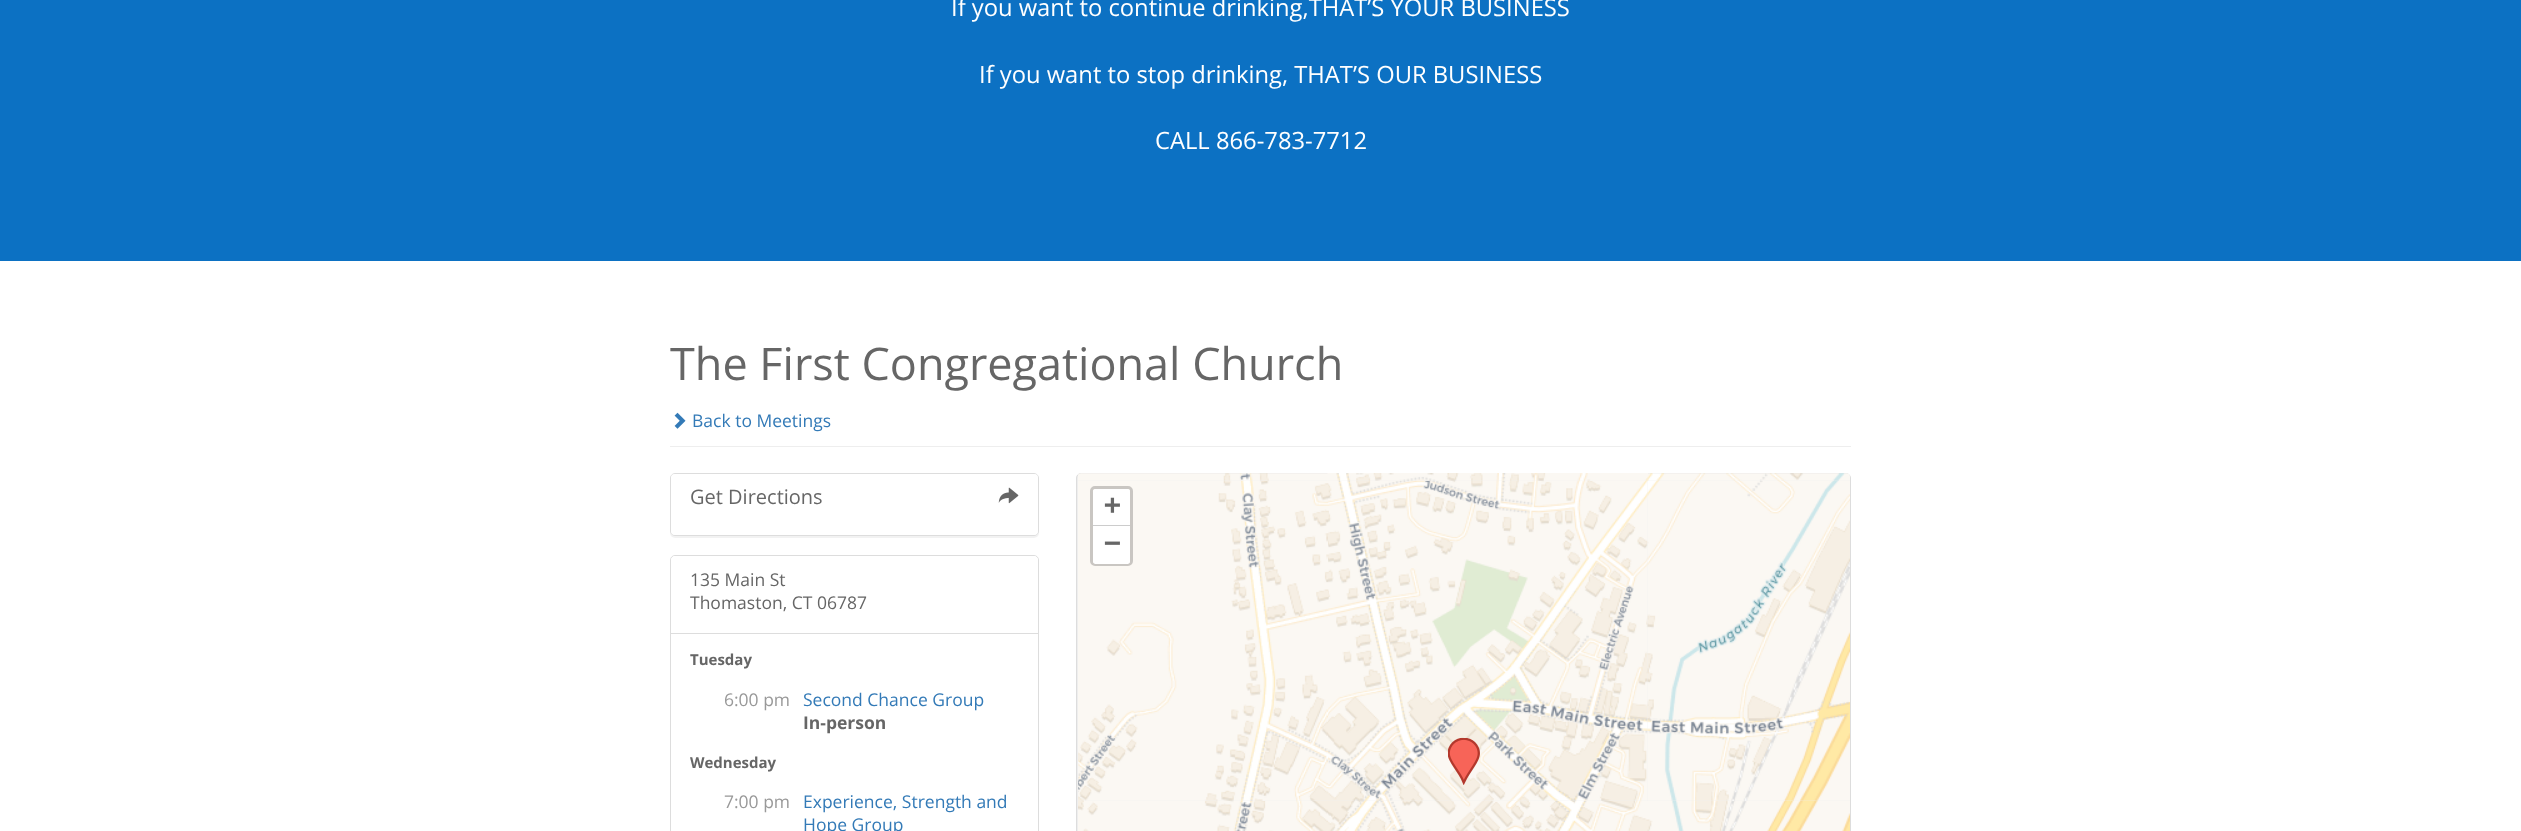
<svg xmlns="http://www.w3.org/2000/svg" xmlns:xlink="http://www.w3.org/1999/xlink" width="2521" height="831" viewBox="0 0 2521 831">
<style>
.cls-1{font:23.75px Open Sans;fill:#ffffff}
.cls-2{font:45px Open Sans;fill:#666666}
.cls-3{font:17.5px Open Sans;fill:#337ab7}
.cls-4{font:20px Open Sans;fill:#666666}
.cls-5{font:17.5px Open Sans;fill:#666666}
.cls-6{font:bold 15px Open Sans;fill:#666666}
.cls-7{font:17.5px Open Sans;fill:#999999}
.cls-8{font:bold 17.5px Open Sans;fill:#666666}
.cls-9{font:bold 28px DejaVu Sans Mono;fill:#666666}
</style>
<rect width="100%" height="100%" fill="#ffffff"/>
<rect fill="#0c71c3" x="0" y="0" width="2521" height="261"/>
<rect fill="#eeeeee" x="670" y="446" width="1181" height="1"/>
<image xlink:href="image0.png" x="674" y="412" width="12" height="17"/>
<rect fill="#000000" fill-opacity="0.05" filter="blur(0.5px)" x="670" y="474" width="369" height="64" rx="5"/>
<rect fill="none" stroke="#dddddd" x="670.5" y="473.5" width="368" height="62" rx="4.5"/>
<rect fill="#ffffff" x="671" y="474" width="367" height="61" rx="4"/>
<image xlink:href="image1.png" x="998" y="487" width="21" height="17"/>
<rect fill="none" stroke="#dddddd" x="670.5" y="555.5" width="368" height="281" rx="4.5"/>
<path fill="#ffffff" d="M675 556H1034C1036 556 1038 558 1038 560V634H671V560C671 558 673 556 675 556Z"/>
<rect fill="#dddddd" x="671" y="633" width="367" height="1"/>
<rect fill="#eeeeee" stroke="#dddddd" x="1076.5" y="473.5" width="774" height="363" rx="4.5"/>
<image xlink:href="image6.png" x="1327" y="480" width="321" height="321"/>
<image xlink:href="image3.png" x="1327" y="473" width="321" height="8"/>
<image xlink:href="image2.png" x="1078" y="473" width="250" height="8"/>
<image xlink:href="image4.png" x="1647" y="473" width="203" height="8"/>
<image xlink:href="image5.png" x="1078" y="481" width="250" height="320"/>
<image xlink:href="image7.png" x="1647" y="481" width="203" height="320"/>
<image xlink:href="image8.png" x="1078" y="801" width="250" height="30"/>
<image xlink:href="image9.png" x="1328" y="801" width="320" height="30"/>
<image xlink:href="image10.png" x="1647" y="801" width="203" height="30"/>
<image xlink:href="image11.png" x="1448" y="738" width="32" height="47"/>
<rect fill="none" stroke="#c9c6c2" stroke-width="3" x="1091.5" y="487.5" width="40" height="77" rx="3.5"/>
<path fill="#ffffff" d="M1095.5 489H1127.5C1129 489 1130 490 1130 491.5V526H1093V491.5C1093 490 1094 489 1095.5 489Z"/>
<rect fill="#cccccc" x="1093" y="525" width="37" height="1"/>
<path fill="#ffffff" d="M1093 526H1130V561.5C1130 563 1129 564 1127.5 564H1095.5C1094 564 1093 563 1093 561.5Z"/>
<text class="cls-1" x="951" y="16">If you want to continue drinking,THAT’S YOUR BUSINESS</text>
<text class="cls-1" x="979" y="83">If you want to stop drinking, THAT’S OUR BUSINESS</text>
<text class="cls-1" x="1155" y="149">CALL 866-783-7712</text>
<text class="cls-2" x="670" y="380">The First Congregational Church</text>
<text class="cls-3" x="692" y="427">Back to Meetings</text>
<text class="cls-4" x="690" y="504">Get Directions</text>
<text class="cls-5"><tspan x="690" y="586">135 Main St</tspan><tspan x="690" y="609">Thomaston, CT 06787</tspan></text>
<text class="cls-6" x="690" y="665">Tuesday</text>
<text class="cls-7" x="724" y="706">6:00 pm</text>
<text class="cls-3" x="803" y="706">Second Chance Group</text>
<text class="cls-8" x="803" y="729">In-person</text>
<text class="cls-6" x="690" y="768">Wednesday</text>
<text class="cls-7" x="724" y="808">7:00 pm</text>
<text class="cls-3"><tspan x="803" y="808">Experience, Strength and</tspan><tspan x="803" y="831">Hope Group</tspan></text>
<text class="cls-9"><tspan x="1104" y="514">+</tspan><tspan x="1104" y="552">−</tspan></text>
</svg>
